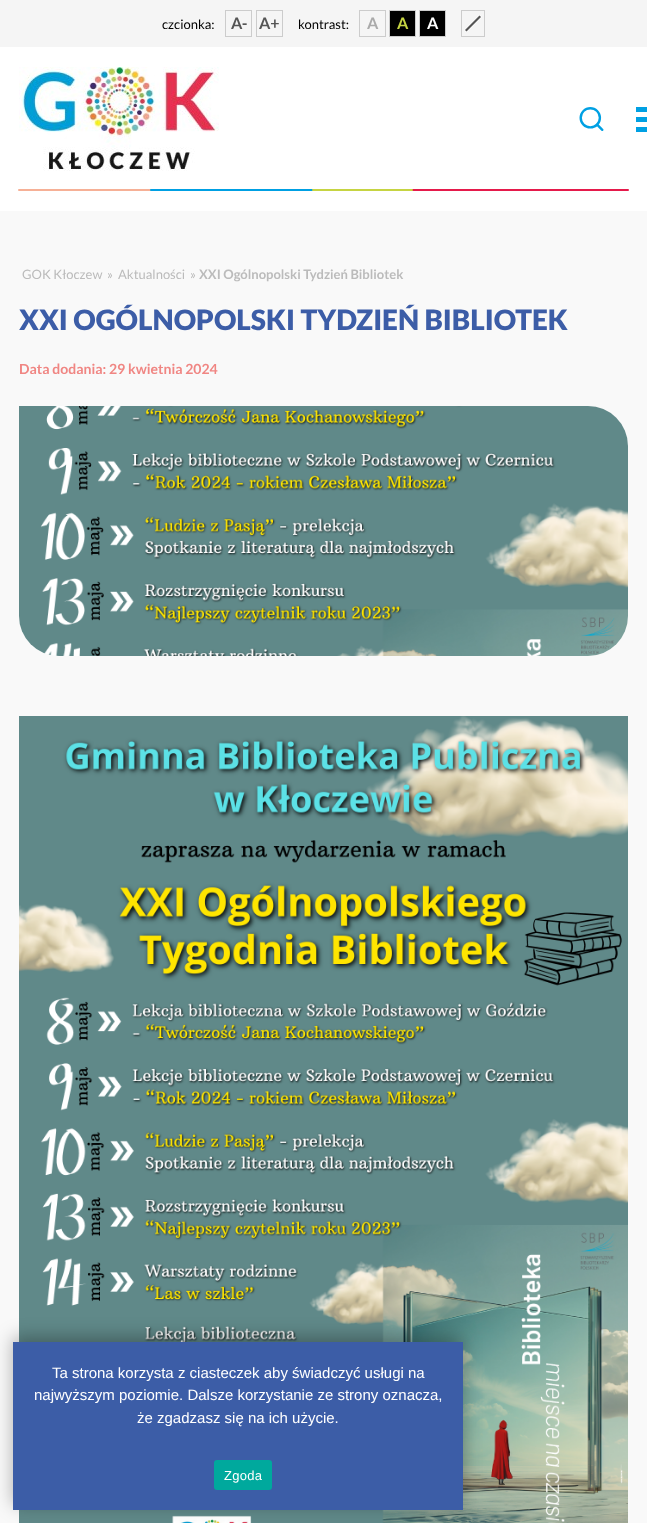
<svg xmlns="http://www.w3.org/2000/svg" xmlns:xlink="http://www.w3.org/1999/xlink" width="647" height="1523" viewBox="0 0 647 1523">
<style>
.cls-1{font:13px Lato;fill:#000000}
.cls-2{font:bold 16px Lato;fill:#555555}
.cls-3{font:bold 16px Lato;fill:#aaaaaa}
.cls-4{font:bold 16px Lato;fill:#c6d442}
.cls-5{font:bold 16px Lato;fill:#ffffff}
.cls-6{font:13px Lato;fill:#bbbbbb}
.cls-7{font:bold 13px Lato;fill:#bbbbbb}
.cls-8{font:900 28px Lato;fill:#3c5da7}
.cls-9{font:bold 14px Lato;fill:#f08683}
.cls-10{font:15px Liberation Sans;fill:#ffffff}
.cls-11{font:13px Liberation Sans;letter-spacing:0.25px;fill:#ffffff}
</style>
<rect width="100%" height="100%" fill="#ffffff"/>
<rect fill="#f6b096" x="18" y="189" width="294" height="2" rx="1"/>
<rect fill="#e51a4b" x="279" y="189" width="350" height="2" rx="1"/>
<rect fill="#00a0e3" x="150" y="189" width="204" height="2" rx="1"/>
<rect fill="#c6d442" x="312" y="189" width="101" height="2" rx="1"/>
<rect fill="#f5f5f5" x="0" y="0" width="647" height="47"/>
<rect fill="none" stroke="#cccccc" x="225.5" y="10.5" width="26" height="26"/>
<rect fill="none" stroke="#cccccc" x="256.5" y="10.5" width="26" height="26"/>
<rect fill="none" stroke="#cccccc" x="359.5" y="10.5" width="26" height="26"/>
<rect fill="#000000" stroke="#cccccc" x="389.5" y="10.5" width="26" height="26"/>
<rect fill="#000000" stroke="#cccccc" x="419.5" y="10.5" width="26" height="26"/>
<rect fill="none" stroke="#cccccc" x="461.5" y="10.5" width="23" height="26"/>
<path fill="none" stroke="#ffffff" d="M464.5 30L479.5 15L481.5 17L466.5 32Z"/>
<path fill="#555555" d="M465 30L479.5 15.5L481 17L466.5 31.5Z"/>
<image xlink:href="image0.png" x="19" y="67" width="200" height="104"/>
<image xlink:href="image1.png" x="579" y="107" width="25" height="24"/>
<rect fill="#00a0e3" x="636" y="107" width="11" height="5"/>
<rect fill="#00a0e3" x="636" y="117" width="11" height="5"/>
<rect fill="#00a0e3" x="636" y="127" width="11" height="5"/>
<rect fill="#f9f9f9" x="0" y="211" width="647" height="1312"/>
<image xlink:href="image2.png" x="19" y="406" width="609" height="250"/>
<image xlink:href="image3.png" x="19" y="716" width="609" height="807"/>
<rect fill="#000000" fill-opacity="0.3" filter="blur(9px)" x="13" y="1337" width="450" height="168"/>
<rect fill="#3c5da7" x="13" y="1342" width="450" height="168"/>
<rect fill="#00a99d" x="214" y="1460" width="58" height="30" rx="3"/>
<text class="cls-1" x="162" y="29">czcionka:</text>
<text class="cls-2" x="231" y="29">A-</text>
<text class="cls-2" x="259" y="29">A+</text>
<text class="cls-1" x="298" y="29">kontrast:</text>
<text class="cls-3" x="367" y="29">A</text>
<text class="cls-4" x="397" y="29">A</text>
<text class="cls-5" x="427" y="29">A</text>
<text class="cls-6" x="22" y="279">GOK Kłoczew</text>
<text class="cls-6" x="107" y="279">»</text>
<text class="cls-6" x="118" y="279">Aktualności</text>
<text class="cls-6" x="190" y="279">»</text>
<text class="cls-7" x="199" y="279">XXI Ogólnopolski Tydzień Bibliotek</text>
<text class="cls-8" x="19" y="330">XXI OGÓLNOPOLSKI TYDZIEŃ BIBLIOTEK</text>
<text class="cls-9" x="19" y="374">Data dodania: 29 kwietnia 2024</text>
<text class="cls-10" x="52" y="1378">Ta strona korzysta z ciasteczek aby świadczyć usługi na</text>
<text class="cls-10" x="34" y="1400">najwyższym poziomie. Dalsze korzystanie ze strony oznacza,</text>
<text class="cls-10" x="137" y="1423">że zgadzasz się na ich użycie.</text>
<text class="cls-11" x="224" y="1480">Zgoda</text>
</svg>
